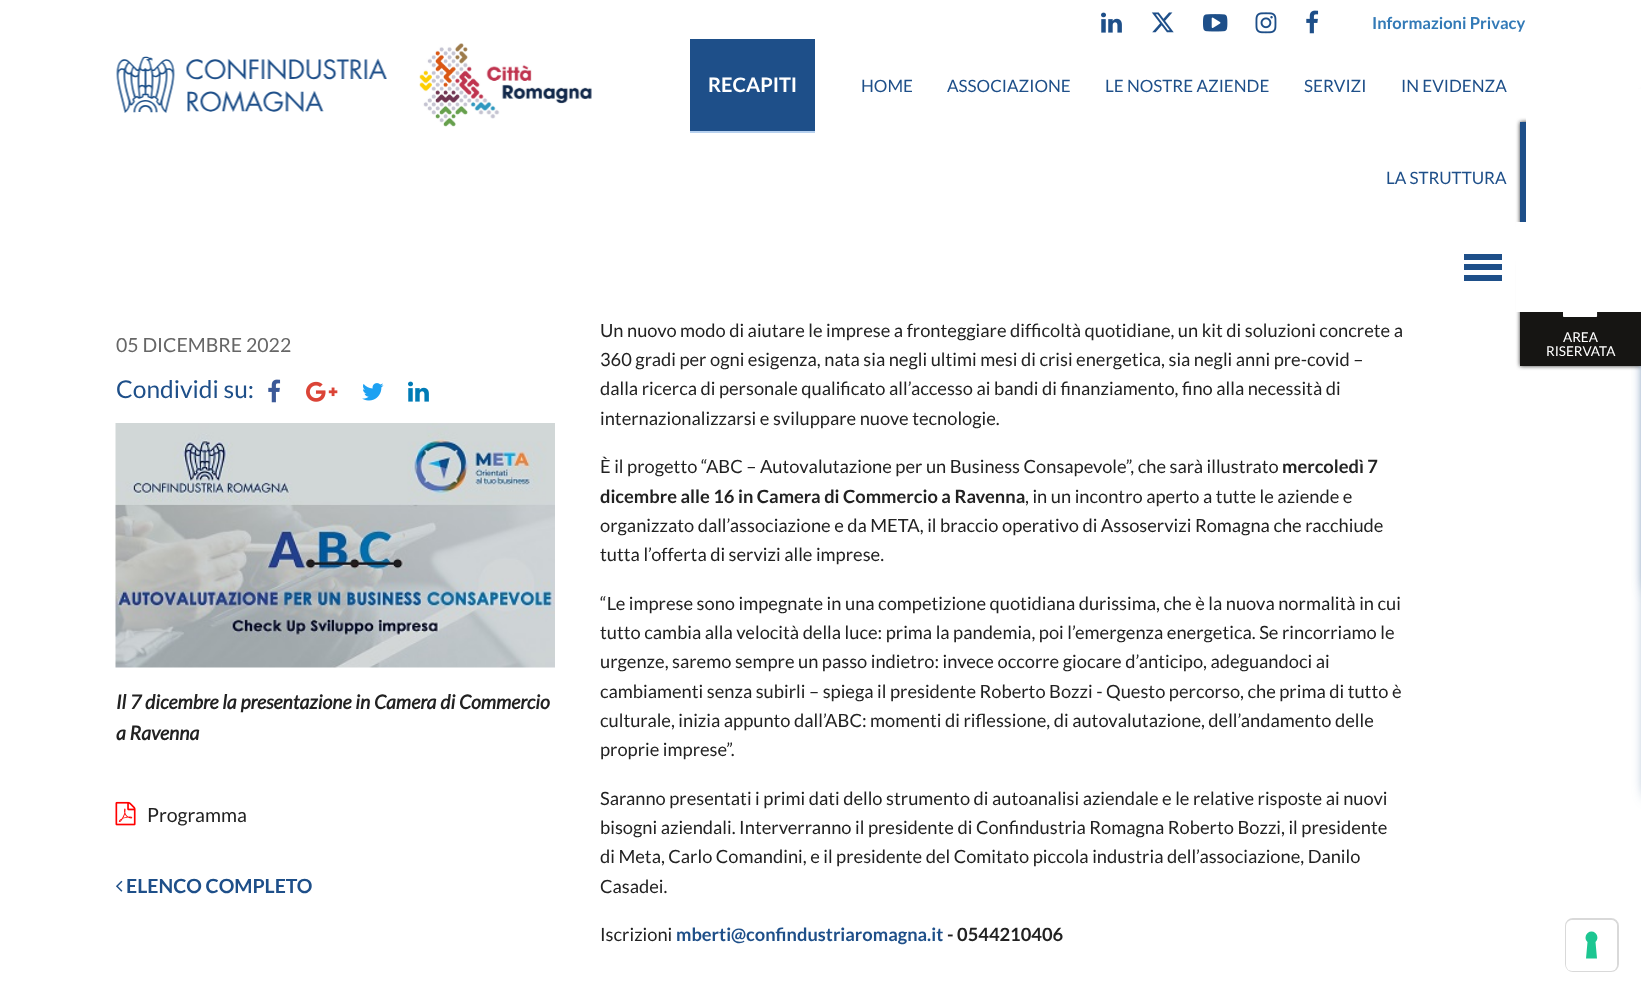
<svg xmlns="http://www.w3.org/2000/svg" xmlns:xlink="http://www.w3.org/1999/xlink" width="1641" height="994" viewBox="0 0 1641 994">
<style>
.cls-1{font:bold 16.5px Lato;fill:#337ab7}
.cls-2{font:bold 20px Lato;fill:#ffffff}
.cls-3{font:17px Lato;fill:#1e4f89}
.cls-4{font:13.5px Lato;fill:#ffffff}
.cls-5{font:19.5px Lato;fill:#666666}
.cls-6{font:24.5px Lato;fill:#1e4f89}
.cls-7{font:italic bold 19.5px Lato;fill:#222222}
.cls-8{font:19.5px Lato;fill:#222222}
.cls-9{font:bold 19.5px Lato;fill:#1e4f89}
.cls-10{font:18.3px Lato;fill:#222222}
.cls-11{font:bold 18.3px Lato;fill:#222222}
.cls-12{font:bold 18.3px Lato;fill:#1e4f89}
</style>
<rect width="100%" height="100%" fill="#ffffff"/>
<image xlink:href="image0.png" x="116" y="56" width="271" height="57"/>
<image xlink:href="image1.png" x="419" y="43" width="173" height="84"/>
<image xlink:href="image2.png" x="1101" y="12" width="21" height="21"/>
<image xlink:href="image3.png" x="1151" y="12" width="23" height="21"/>
<image xlink:href="image4.png" x="1203" y="14" width="25" height="18"/>
<image xlink:href="image5.png" x="1255" y="12" width="22" height="22"/>
<image xlink:href="image6.png" x="1306" y="10" width="13" height="24"/>
<rect fill="#1e4f89" x="690" y="39" width="125" height="92"/>
<rect fill="#b7d1ef" x="690" y="131" width="125" height="2"/>
<rect fill="#1e4f89" filter="blur(7.5px)" x="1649" y="102" width="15" height="692"/>
<rect fill="#333333" filter="blur(2px)" x="1520" y="122" width="121" height="103"/>
<rect fill="#333333" filter="blur(2px)" x="1520" y="263" width="121" height="103"/>
<rect fill="#1e4f89" filter="blur(7.5px)" x="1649" y="102" width="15" height="486"/>
<rect fill="#ffffff" x="1526" y="89" width="115" height="223"/>
<rect fill="#ffffff" x="1516" y="222" width="10" height="90"/>
<rect fill="#1e4f89" x="1464" y="254" width="38" height="6"/>
<rect fill="#1e4f89" x="1464" y="264" width="38" height="6"/>
<rect fill="#1e4f89" x="1464" y="275" width="38" height="6"/>
<rect fill="#1e4f89" x="1520" y="122" width="6" height="100"/>
<rect fill="#161513" x="1520" y="312" width="121" height="54"/>
<image xlink:href="image7.png" x="1563" y="312" width="35" height="5"/>
<image xlink:href="image8.png" x="268" y="379" width="13" height="24"/>
<image xlink:href="image9.png" x="306" y="381" width="32" height="21"/>
<image xlink:href="image10.png" x="362" y="383" width="22" height="18"/>
<image xlink:href="image11.png" x="408" y="381" width="21" height="21"/>
<image xlink:href="image12.png" x="115" y="423" width="440" height="245"/>
<image xlink:href="image13.png" x="115" y="801" width="21" height="25"/>
<image xlink:href="image14.png" x="116" y="880" width="7" height="12"/>
<rect fill="none" stroke="#d9d9d9" stroke-width="2" x="1566" y="919" width="52" height="52" rx="7"/>
<rect fill="#ffffff" x="1566" y="920" width="51" height="51" rx="6"/>
<path fill="#1cc691" fill-rule="evenodd" d="M1591.5 931.5C1597 931.5 1599.5 938.5 1595.5 942L1597 958.5H1586L1587.5 942C1583.5 938.5 1586 931.5 1591.5 931.5Z"/>
<text class="cls-1" x="1372" y="29">Informazioni Privacy</text>
<text class="cls-2" x="708" y="92">RECAPITI</text>
<text class="cls-3" x="861" y="92">HOME</text>
<text class="cls-3" x="947" y="92">ASSOCIAZIONE</text>
<text class="cls-3" x="1105" y="92">LE NOSTRE AZIENDE</text>
<text class="cls-3" x="1304" y="92">SERVIZI</text>
<text class="cls-3" x="1401" y="92">IN EVIDENZA</text>
<text class="cls-3" x="1386" y="184">LA STRUTTURA</text>
<text class="cls-4" x="1563" y="342">AREA</text>
<text class="cls-4" x="1546" y="356">RISERVATA</text>
<text class="cls-5" x="116" y="352">05 DICEMBRE 2022</text>
<text class="cls-6" x="116" y="398">Condividi su:</text>
<text class="cls-7"><tspan x="116" y="709">Il 7 dicembre la presentazione in Camera di Commercio</tspan><tspan x="116" y="740">a Ravenna</tspan></text>
<text class="cls-8" x="147" y="822">Programma</text>
<text class="cls-9" x="126" y="893">ELENCO COMPLETO</text>
<text class="cls-10"><tspan x="600" y="337">Un nuovo modo di aiutare le imprese a fronteggiare difficoltà quotidiane, un kit di soluzioni concrete a</tspan><tspan x="600" y="366">360 gradi per ogni esigenza, nata sia negli ultimi mesi di crisi energetica, sia negli anni pre-covid –</tspan><tspan x="600" y="395">dalla ricerca di personale qualificato all’accesso ai bandi di finanziamento, fino alla necessità di</tspan><tspan x="600" y="425">internazionalizzarsi e sviluppare nuove tecnologie.</tspan></text>
<text class="cls-10" x="600" y="473">È il progetto “ABC – Autovalutazione per un Business Consapevole”, che sarà illustrato</text>
<text class="cls-11" x="1282" y="473">mercoledì 7</text>
<text class="cls-11" x="600" y="503">dicembre alle 16 in Camera di Commercio a Ravenna</text>
<text class="cls-10" x="1025" y="503">, in un incontro aperto a tutte le aziende e</text>
<text class="cls-10"><tspan x="600" y="532">organizzato dall’associazione e da META, il braccio operativo di Assoservizi Romagna che racchiude</tspan><tspan x="600" y="561">tutta l’offerta di servizi alle imprese.</tspan></text>
<text class="cls-10"><tspan x="600" y="610">“Le imprese sono impegnate in una competizione quotidiana durissima, che è la nuova normalità in cui</tspan><tspan x="600" y="639">tutto cambia alla velocità della luce: prima la pandemia, poi l’emergenza energetica. Se rincorriamo le</tspan><tspan x="600" y="668">urgenze, saremo sempre un passo indietro: invece occorre giocare d’anticipo, adeguandoci ai</tspan><tspan x="600" y="698">cambiamenti senza subirli – spiega il presidente Roberto Bozzi - Questo percorso, che prima di tutto è</tspan><tspan x="600" y="727">culturale, inizia appunto dall’ABC: momenti di riflessione, di autovalutazione, dell’andamento delle</tspan><tspan x="600" y="756">proprie imprese”.</tspan></text>
<text class="cls-10"><tspan x="600" y="805">Saranno presentati i primi dati dello strumento di autoanalisi aziendale e le relative risposte ai nuovi</tspan><tspan x="600" y="834">bisogni aziendali. Interverranno il presidente di Confindustria Romagna Roberto Bozzi, il presidente</tspan><tspan x="600" y="863">di Meta, Carlo Comandini, e il presidente del Comitato piccola industria dell’associazione, Danilo</tspan><tspan x="600" y="893">Casadei.</tspan></text>
<text class="cls-10" x="600" y="941">Iscrizioni</text>
<text class="cls-12" x="676" y="941">mberti@confindustriaromagna.it</text>
<text class="cls-11" x="947" y="941">- 0544210406</text>
</svg>
